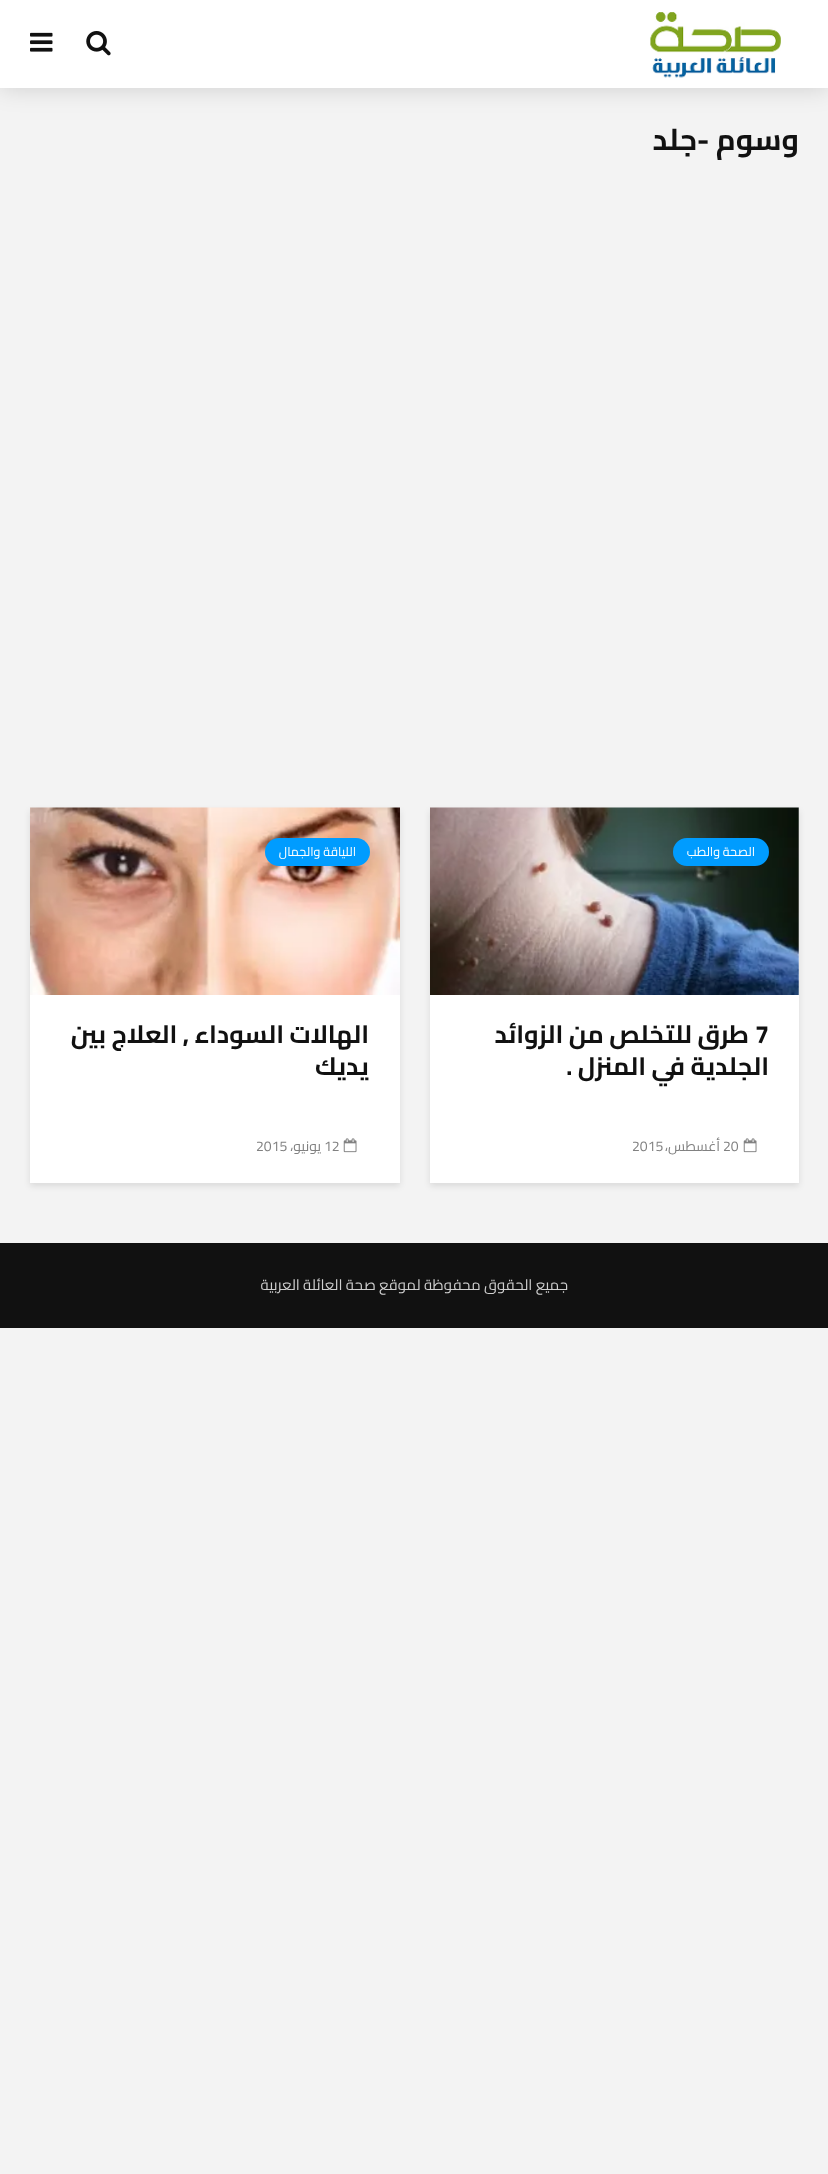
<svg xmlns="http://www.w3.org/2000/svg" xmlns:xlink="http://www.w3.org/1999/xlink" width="828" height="2174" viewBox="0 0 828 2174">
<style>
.cls-1{font:bold 30px Cairo;direction:rtl;fill:#111111}
.cls-2{font:12.5px Cairo;direction:rtl;fill:#ffffff}
.cls-3{font:bold 25px Cairo;fill:#111111}
.cls-4{font:bold 25px Cairo;direction:rtl;fill:#111111}
.cls-5{font:14px Cairo;fill:#818181}
.cls-6{font:14px Cairo;direction:rtl;fill:#818181}
.cls-7{font:15px Cairo;direction:rtl;fill:#cfcfcf}
</style>
<rect width="100%" height="100%" fill="#f3f3f3"/>
<rect fill="#000000" fill-opacity="0.15" filter="blur(12.5px)" x="0" y="0" width="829" height="88"/>
<rect fill="#ffffff" x="0" y="0" width="828" height="88"/>
<image xlink:href="image0.png" x="650" y="12" width="131" height="66"/>
<image xlink:href="image1.png" x="86" y="31" width="25" height="25"/>
<image xlink:href="image2.png" x="30" y="32" width="23" height="20"/>
<rect fill="#000101" fill-opacity="0.1" filter="blur(3px)" x="430" y="811" width="369" height="375"/>
<rect fill="#ffffff" x="430" y="808" width="369" height="375"/>
<image xlink:href="image3.png" x="430" y="807" width="369" height="188"/>
<rect fill="#009cff" x="673" y="838" width="96" height="28" rx="14"/>
<image xlink:href="image4.png" x="743" y="1138" width="14" height="15"/>
<rect fill="#000101" fill-opacity="0.1" filter="blur(3px)" x="30" y="811" width="370" height="375"/>
<rect fill="#ffffff" x="30" y="995" width="370" height="188"/>
<image xlink:href="image5.png" x="30" y="807" width="370" height="188"/>
<rect fill="#009cff" x="265" y="838" width="105" height="28" rx="14"/>
<image xlink:href="image4.png" x="343" y="1138" width="14" height="15"/>
<rect fill="#111111" x="0" y="1243" width="828" height="85"/>
<text class="cls-1" x="799" y="150">وسوم -جلد</text>
<text class="cls-2" x="755" y="856">الصحة والطب</text>
<text class="cls-3" x="755" y="1043">7</text>
<text class="cls-4" x="749" y="1043">طرق للتخلص من الزوائد</text>
<text class="cls-4" x="769" y="1075">الجلدية في المنزل .</text>
<text class="cls-5" x="723" y="1151">20</text>
<text class="cls-6" x="720" y="1151">أغسطس،</text>
<text class="cls-5" x="632" y="1151">2015</text>
<text class="cls-2" x="356" y="856">اللياقة والجمال</text>
<text class="cls-4"><tspan x="369" y="1043">الهالات السوداء , العلاج بين</tspan><tspan x="369" y="1075">يديك</tspan></text>
<text class="cls-5" x="324" y="1151">12</text>
<text class="cls-6" x="321" y="1151">يونيو،</text>
<text class="cls-5" x="256" y="1151">2015</text>
<text class="cls-7" x="568" y="1290">جميع الحقوق محفوظة لموقع صحة العائلة العربية</text>
</svg>
